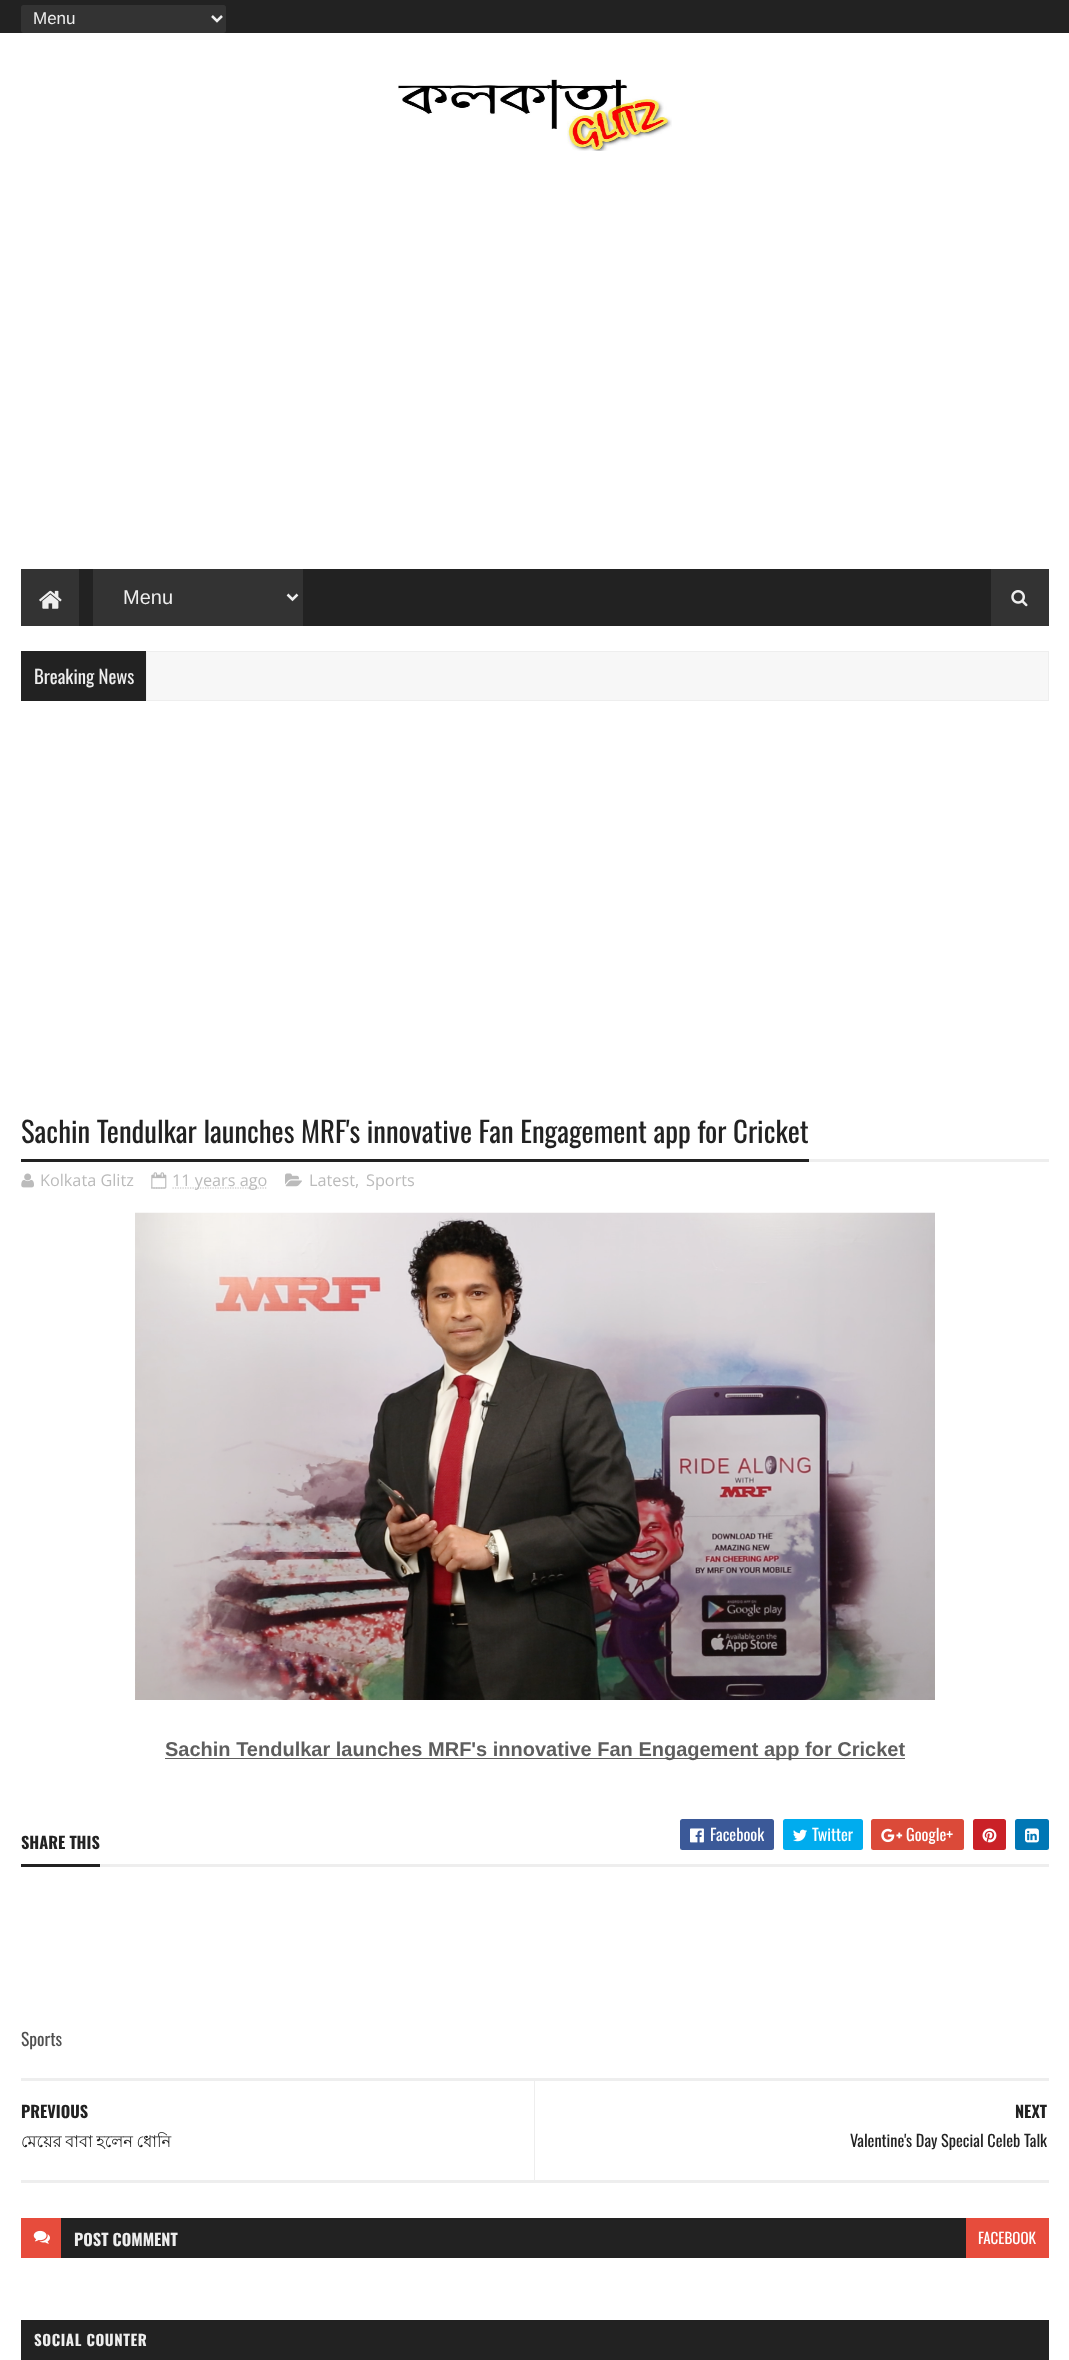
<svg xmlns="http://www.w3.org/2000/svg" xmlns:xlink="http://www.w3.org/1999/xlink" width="1069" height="2360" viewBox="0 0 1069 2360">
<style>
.cls-1{font:17px Liberation Sans;fill:#eeeeee}
.cls-2{font:20px Liberation Sans;fill:#eeeeee}
.cls-3{font:18.75px Oswald;fill:#eeeeee}
.cls-4{font:28.75px Oswald;fill:#222222}
.cls-5{font:16.25px Open Sans;fill:#bbbbbb}
.cls-6{font:bold 20px Liberation Sans;fill:#5e5e5e}
.cls-7{font:bold 16.25px Oswald;fill:#222222}
.cls-8{font:16.25px Oswald;fill:#ffffff}
.cls-9{font:17.5px Oswald;fill:#4f4f4f}
.cls-10{font:16.25px Lohit Bengali;fill:#222222}
.cls-11{font:16.25px Oswald;fill:#222222}
.cls-12{font:bold 16.25px Oswald;fill:#eeeeee}
.cls-13{font:15px Oswald;fill:#ffffff}
.cls-14{font:bold 15px Oswald;letter-spacing:0.6px;fill:#eeeeee}
</style>
<rect width="100%" height="100%" fill="#ffffff"/>
<rect fill="#222222" x="0" y="0" width="1069" height="33"/>
<rect fill="#333333" x="21" y="5" width="205" height="28" rx="2.5"/>
<path fill="none" stroke="#eeeeee" stroke-width="2.5" d="M212 16L217 21L222 16"/>
<image xlink:href="image0.png" x="398" y="79" width="274" height="72"/>
<rect fill="#222222" x="79" y="569" width="912" height="57"/>
<rect fill="#333333" x="21" y="569" width="58" height="57"/>
<image xlink:href="image1.png" x="39" y="590" width="23" height="19"/>
<rect fill="#333333" x="93" y="569" width="210" height="57"/>
<path fill="none" stroke="#eeeeee" stroke-width="2.5" d="M287.5 594.5L292.5 599.5L297.5 594.5"/>
<rect fill="#333333" x="991" y="569" width="58" height="57"/>
<image xlink:href="image2.png" x="1011" y="590" width="17" height="17"/>
<rect fill="#222222" x="21" y="651" width="125" height="50"/>
<rect fill="#f7f7f7" stroke="#eeeeee" x="146.5" y="651.5" width="902" height="49"/>
<rect fill="#eeeeee" x="809" y="1159" width="240" height="3"/>
<rect fill="#222222" x="21" y="1159" width="788" height="3"/>
<image xlink:href="image3.png" x="21" y="1173" width="13" height="15"/>
<path fill="none" stroke="#bbbbbb" stroke-width="1.2" stroke-dasharray="1.25 1.25" d="M151 1188H166"/>
<image xlink:href="image4.png" x="151" y="1172" width="16" height="17"/>
<path fill="none" stroke="#bbbbbb" stroke-width="1.2" stroke-dasharray="1.25 1.25" d="M172.5 1188H267.5"/>
<image xlink:href="image5.png" x="285" y="1173" width="17" height="14"/>
<image xlink:href="image6.png" x="135" y="1212" width="800" height="488"/>
<rect fill="#5e5e5e" x="165" y="1758" width="740" height="1"/>
<rect fill="#eeeeee" x="100" y="1864" width="949" height="3"/>
<rect fill="#222222" x="21" y="1864" width="79" height="3"/>
<rect fill="#3b5998" x="680" y="1819" width="94" height="31" rx="2.5"/>
<image xlink:href="image7.png" x="690" y="1828" width="14" height="15"/>
<rect fill="#00acee" x="783" y="1819" width="80" height="31" rx="2.5"/>
<image xlink:href="image8.png" x="793" y="1829" width="14" height="13"/>
<rect fill="#db4a39" x="871" y="1819" width="93" height="31" rx="2.5"/>
<image xlink:href="image9.png" x="881" y="1828" width="22" height="15"/>
<rect fill="#ca2127" x="973" y="1819" width="33" height="31" rx="2.5"/>
<image xlink:href="image10.png" x="982" y="1828" width="15" height="15"/>
<rect fill="#0077b5" x="1015" y="1819" width="34" height="31" rx="2.5"/>
<image xlink:href="image11.png" x="1025" y="1828" width="14" height="15"/>
<rect fill="#eeeeee" x="21" y="2078" width="1028" height="3"/>
<rect fill="#eeeeee" x="21" y="2180" width="1028" height="3"/>
<rect fill="#eeeeee" x="534" y="2080" width="1" height="100"/>
<rect fill="#222222" x="61" y="2218" width="905" height="40"/>
<rect fill="#e74c3c" x="21" y="2218" width="40" height="40"/>
<image xlink:href="image12.png" x="33" y="2230" width="17" height="14"/>
<rect fill="#e74c3c" x="966" y="2218" width="83" height="40"/>
<rect fill="#222222" x="21" y="2320" width="1028" height="40"/>
<text class="cls-1" x="33" y="24">Menu</text>
<text class="cls-2" x="123" y="604">Menu</text>
<text class="cls-3" x="34" y="684">Breaking News</text>
<text class="cls-4" x="21" y="1143">Sachin Tendulkar launches MRF's innovative Fan Engagement app for Cricket</text>
<text class="cls-5" x="40" y="1186">Kolkata Glitz</text>
<text class="cls-5" x="172" y="1186">11 years ago</text>
<text class="cls-5" x="309" y="1186">Latest</text>
<text class="cls-5" x="355" y="1186">,</text>
<text class="cls-5" x="366" y="1186">Sports</text>
<text class="cls-6" x="165" y="1756">Sachin Tendulkar launches MRF's innovative Fan Engagement app for Cricket</text>
<text class="cls-7" x="21" y="1849">SHARE THIS</text>
<text class="cls-8" x="710" y="1841">Facebook</text>
<text class="cls-8" x="812" y="1841">Twitter</text>
<text class="cls-8" x="906" y="1841">Google+</text>
<text class="cls-9" x="21" y="2046">Sports</text>
<text class="cls-7" x="21" y="2118">PREVIOUS</text>
<text class="cls-10" x="21" y="2147" word-spacing="-1">মেয়ের বাবা হলেন ধোনি</text>
<text class="cls-7" x="1015" y="2118">NEXT</text>
<text class="cls-11" x="850" y="2147">Valentine's Day Special Celeb Talk</text>
<text class="cls-12" x="74" y="2246">POST COMMENT</text>
<text class="cls-13" x="978" y="2244">FACEBOOK</text>
<text class="cls-14" x="34" y="2346">SOCIAL COUNTER</text>
</svg>
